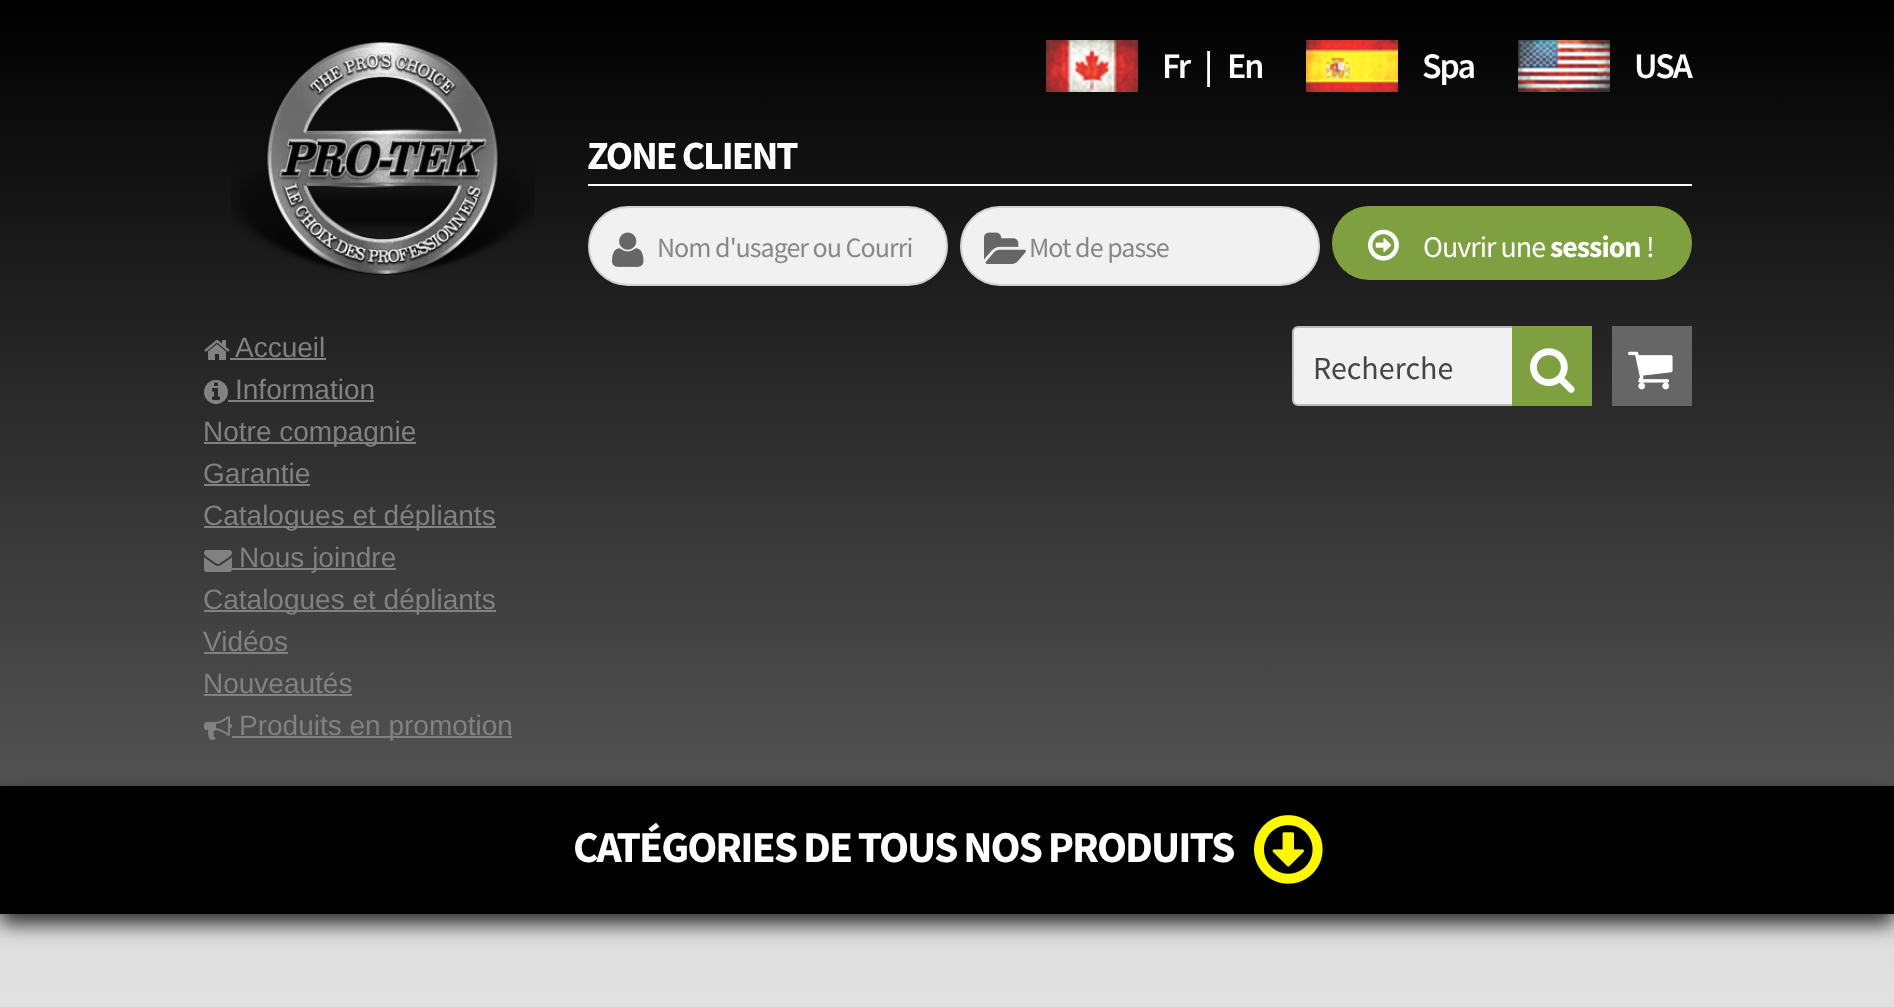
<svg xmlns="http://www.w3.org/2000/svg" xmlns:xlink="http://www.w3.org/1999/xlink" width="1894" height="1007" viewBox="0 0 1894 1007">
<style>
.cls-1{font:600 36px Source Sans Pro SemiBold;letter-spacing:-2px;fill:#ffffff}
.cls-2{font:bold 40px Source Sans Pro;letter-spacing:-2px;fill:#ffffff}
.cls-3{font:28px Source Sans Pro;letter-spacing:-1px;fill:#888888}
.cls-4{font:30px Source Sans Pro;letter-spacing:-1px;fill:#ffffff}
.cls-5{font:bold 30px Source Sans Pro;letter-spacing:-1px;fill:#ffffff}
.cls-6{font:28px Liberation Sans;fill:#818181}
.cls-7{font:32px Source Sans Pro;fill:#454545}
.cls-8{font:bold 44px Source Sans Pro;letter-spacing:-2px;fill:#ffffff}
</style>
<defs>
<linearGradient id="g1" gradientUnits="userSpaceOnUse" x1="947" y1="0" x2="947" y2="786"><stop offset="0" stop-color="#000000"/><stop offset="1" stop-color="#535353"/></linearGradient>
<linearGradient id="g2" gradientUnits="userSpaceOnUse" x1="947" y1="914" x2="947" y2="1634"><stop offset="0" stop-color="#dddddd"/><stop offset="1" stop-color="#ffffff"/></linearGradient>
</defs>
<rect width="100%" height="100%" fill="#ffffff"/>
<rect fill="url(#g1)" x="0" y="0" width="1894" height="786"/>
<image xlink:href="image0.png" x="231" y="42" width="304" height="233"/>
<image xlink:href="image1.png" x="1046" y="40" width="92" height="52"/>
<image xlink:href="image2.png" x="1306" y="40" width="92" height="52"/>
<image xlink:href="image3.png" x="1518" y="40" width="92" height="52"/>
<rect fill="#ffffff" x="588" y="184" width="1104" height="2"/>
<rect fill="#f1f1f1" stroke="#d1d1d1" stroke-width="2" x="589" y="207" width="358" height="78" rx="39"/>
<image xlink:href="image4.png" x="612" y="232" width="32" height="35"/>
<rect fill="#f1f1f1" stroke="#d1d1d1" stroke-width="2" x="961" y="207" width="358" height="78" rx="39"/>
<image xlink:href="image5.png" x="984" y="232" width="42" height="32"/>
<rect fill="#7fa041" x="1332" y="206" width="360" height="74" rx="37"/>
<image xlink:href="image6.png" x="1368" y="229" width="31" height="32"/>
<image xlink:href="image7.png" x="204" y="340" width="26" height="20"/>
<rect fill="#818181" x="230" y="358" width="96" height="2"/>
<image xlink:href="image8.png" x="204" y="380" width="24" height="24"/>
<rect fill="#818181" x="228" y="400" width="146" height="2"/>
<rect fill="#818181" x="204" y="442" width="212" height="2"/>
<rect fill="#818181" x="204" y="484" width="106" height="2"/>
<rect fill="#818181" x="204" y="526" width="292" height="2"/>
<image xlink:href="image9.png" x="204" y="550" width="28" height="22"/>
<rect fill="#818181" x="232" y="568" width="164" height="2"/>
<rect fill="#818181" x="204" y="610" width="292" height="2"/>
<rect fill="#818181" x="204" y="652" width="84" height="2"/>
<rect fill="#818181" x="204" y="694" width="148" height="2"/>
<image xlink:href="image10.png" x="204" y="716" width="28" height="24"/>
<rect fill="#818181" x="232" y="736" width="280" height="2"/>
<rect fill="#f1f1f1" stroke="#bbbbbb" stroke-width="2" x="1293" y="327" width="298" height="78" rx="5"/>
<rect fill="#7fa041" x="1512" y="326" width="80" height="80"/>
<image xlink:href="image11.png" x="1530" y="348" width="45" height="45"/>
<rect fill="#666666" x="1612" y="326" width="80" height="80"/>
<image xlink:href="image12.png" x="1628" y="351" width="45" height="39"/>
<rect fill="url(#g2)" x="0" y="914" width="1894" height="93"/>
<rect fill="#000000" fill-opacity="0.8" filter="blur(10px)" x="0" y="796" width="1894" height="128"/>
<rect fill="#000000" x="0" y="786" width="1894" height="128"/>
<image xlink:href="image13.png" x="1254" y="815" width="69" height="69"/>
<text class="cls-1" x="1162" y="78">Fr</text>
<text class="cls-1" x="1204" y="78">|</text>
<text class="cls-1" x="1227" y="78">En</text>
<text class="cls-1" x="1422" y="78">Spa</text>
<text class="cls-1" x="1634" y="78">USA</text>
<text class="cls-2" x="587" y="169">ZONE CLIENT</text>
<text class="cls-3" x="657" y="257">Nom d'usager ou Courri</text>
<text class="cls-3" x="1029" y="257">Mot de passe</text>
<text class="cls-4" x="1423" y="257">Ouvrir une</text>
<text class="cls-5" x="1550" y="257">session</text>
<text class="cls-4" x="1646" y="257">!</text>
<text class="cls-6"><tspan x="235" y="357">Accueil</tspan><tspan x="235" y="399">Information</tspan></text>
<text class="cls-6"><tspan x="203" y="441">Notre compagnie</tspan><tspan x="203" y="483">Garantie</tspan><tspan x="203" y="525">Catalogues et dépliants</tspan></text>
<text class="cls-6" x="239" y="567">Nous joindre</text>
<text class="cls-6"><tspan x="203" y="609">Catalogues et dépliants</tspan><tspan x="203" y="651">Vidéos</tspan><tspan x="203" y="693">Nouveautés</tspan></text>
<text class="cls-6" x="239" y="735">Produits en promotion</text>
<text class="cls-7" x="1313" y="379">Recherche</text>
<text class="cls-8" x="573" y="862">CATÉGORIES DE TOUS NOS PRODUITS</text>
</svg>
